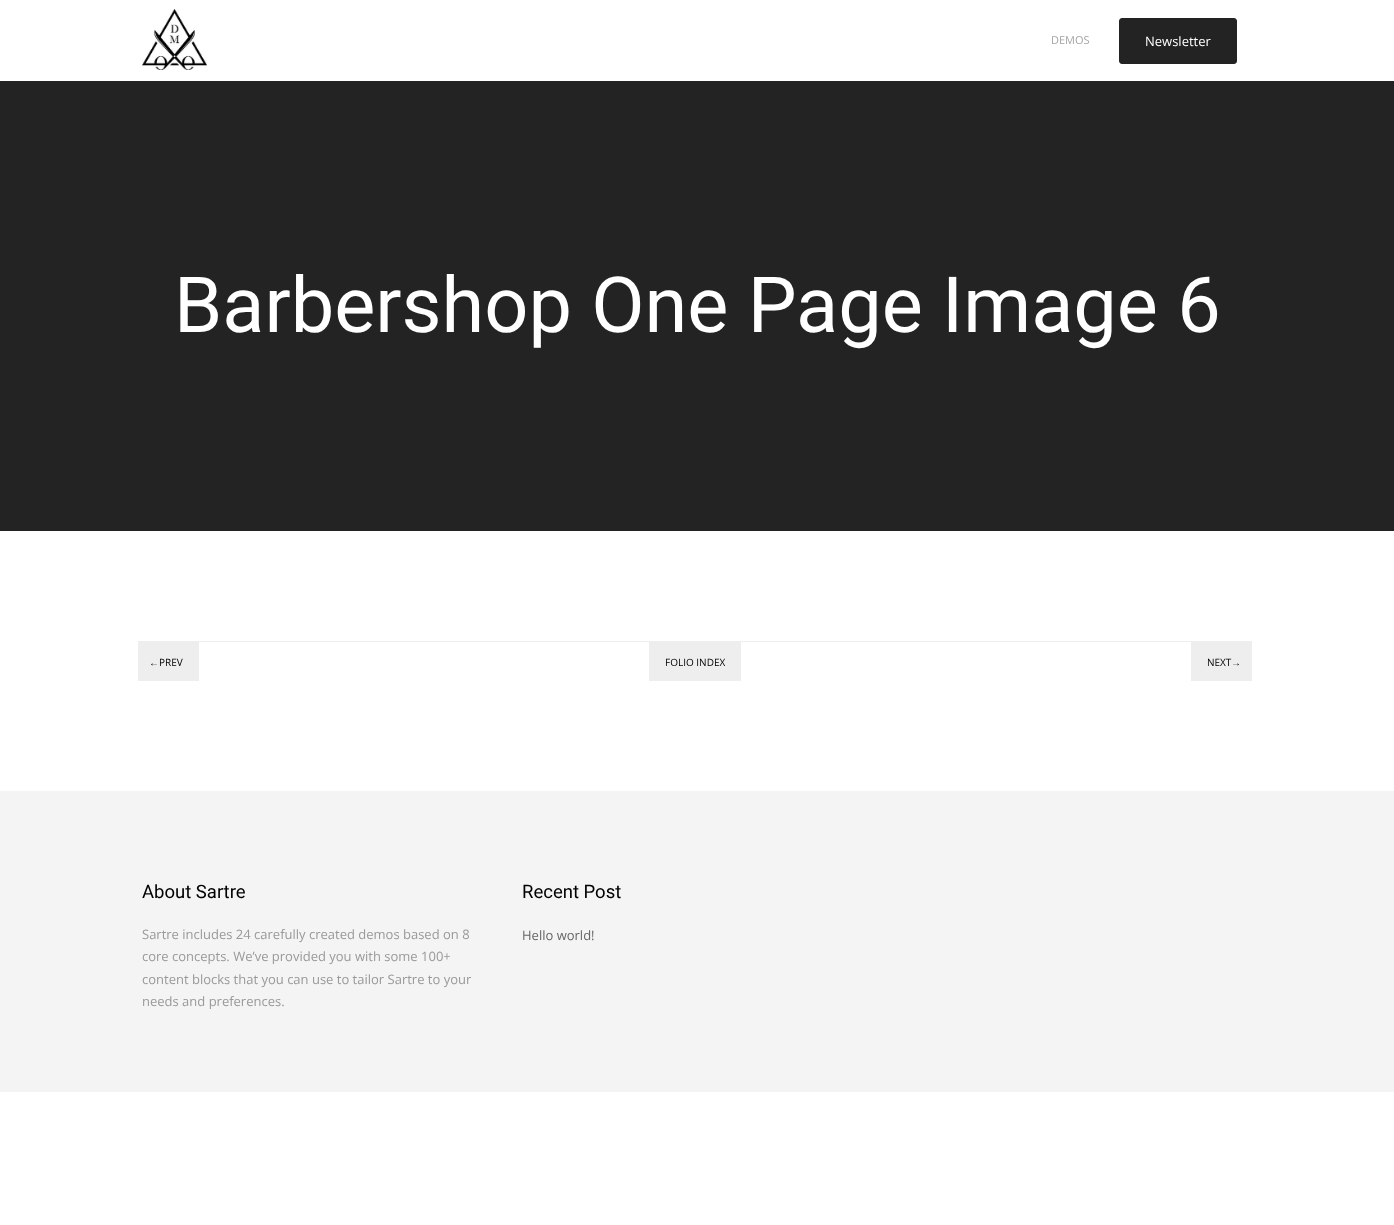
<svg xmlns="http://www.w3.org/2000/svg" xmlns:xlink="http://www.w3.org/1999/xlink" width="1394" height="1225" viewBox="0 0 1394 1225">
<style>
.cls-1{font:11px Open Sans;fill:#a3a3a3}
.cls-2{font:13px Open Sans;fill:#ffffff}
.cls-3{font:77.5px Roboto;fill:#ffffff}
.cls-4{font:10px Liberation Sans;fill:#000000}
.cls-5{font:10px Open Sans;fill:#000000}
.cls-6{font:18.5px Roboto;fill:#000000}
.cls-7{font:13px Open Sans;fill:#999999}
.cls-8{font:13px Open Sans;fill:#666666}
</style>
<rect width="100%" height="100%" fill="#ffffff"/>
<image xlink:href="image0.png" x="142" y="9" width="65" height="61"/>
<rect fill="#232323" stroke="#232323" x="1119.5" y="18.5" width="117" height="45" rx="2.5"/>
<rect fill="#232323" x="0" y="81" width="1394" height="450"/>
<rect fill="#eeeeee" x="199" y="641" width="992" height="1"/>
<rect fill="#eeeeee" x="138" y="641" width="61" height="40"/>
<rect fill="#eeeeee" x="649" y="642" width="92" height="39"/>
<rect fill="#eeeeee" x="1191" y="641" width="61" height="40"/>
<rect fill="#f4f4f4" x="0" y="791" width="1394" height="301"/>
<text class="cls-1" x="1051" y="44">DEMOS</text>
<text class="cls-2" x="1145" y="46">Newsletter</text>
<text class="cls-3" x="174" y="332">Barbershop One Page Image 6</text>
<text class="cls-4" x="149" y="666">←</text>
<text class="cls-5" x="159" y="666">PREV</text>
<text class="cls-5" x="665" y="666">FOLIO INDEX</text>
<text class="cls-5" x="1207" y="666">NEXT</text>
<text class="cls-4" x="1231" y="666">→</text>
<text class="cls-6" x="142" y="898">About Sartre</text>
<text class="cls-7"><tspan x="142" y="939">Sartre includes 24 carefully created demos based on 8</tspan><tspan x="142" y="961">core concepts. We’ve provided you with some 100+</tspan><tspan x="142" y="984">content blocks that you can use to tailor Sartre to your</tspan><tspan x="142" y="1006">needs and preferences.</tspan></text>
<text class="cls-6" x="522" y="898">Recent Post</text>
<text class="cls-8" x="522" y="940">Hello world!</text>
</svg>
